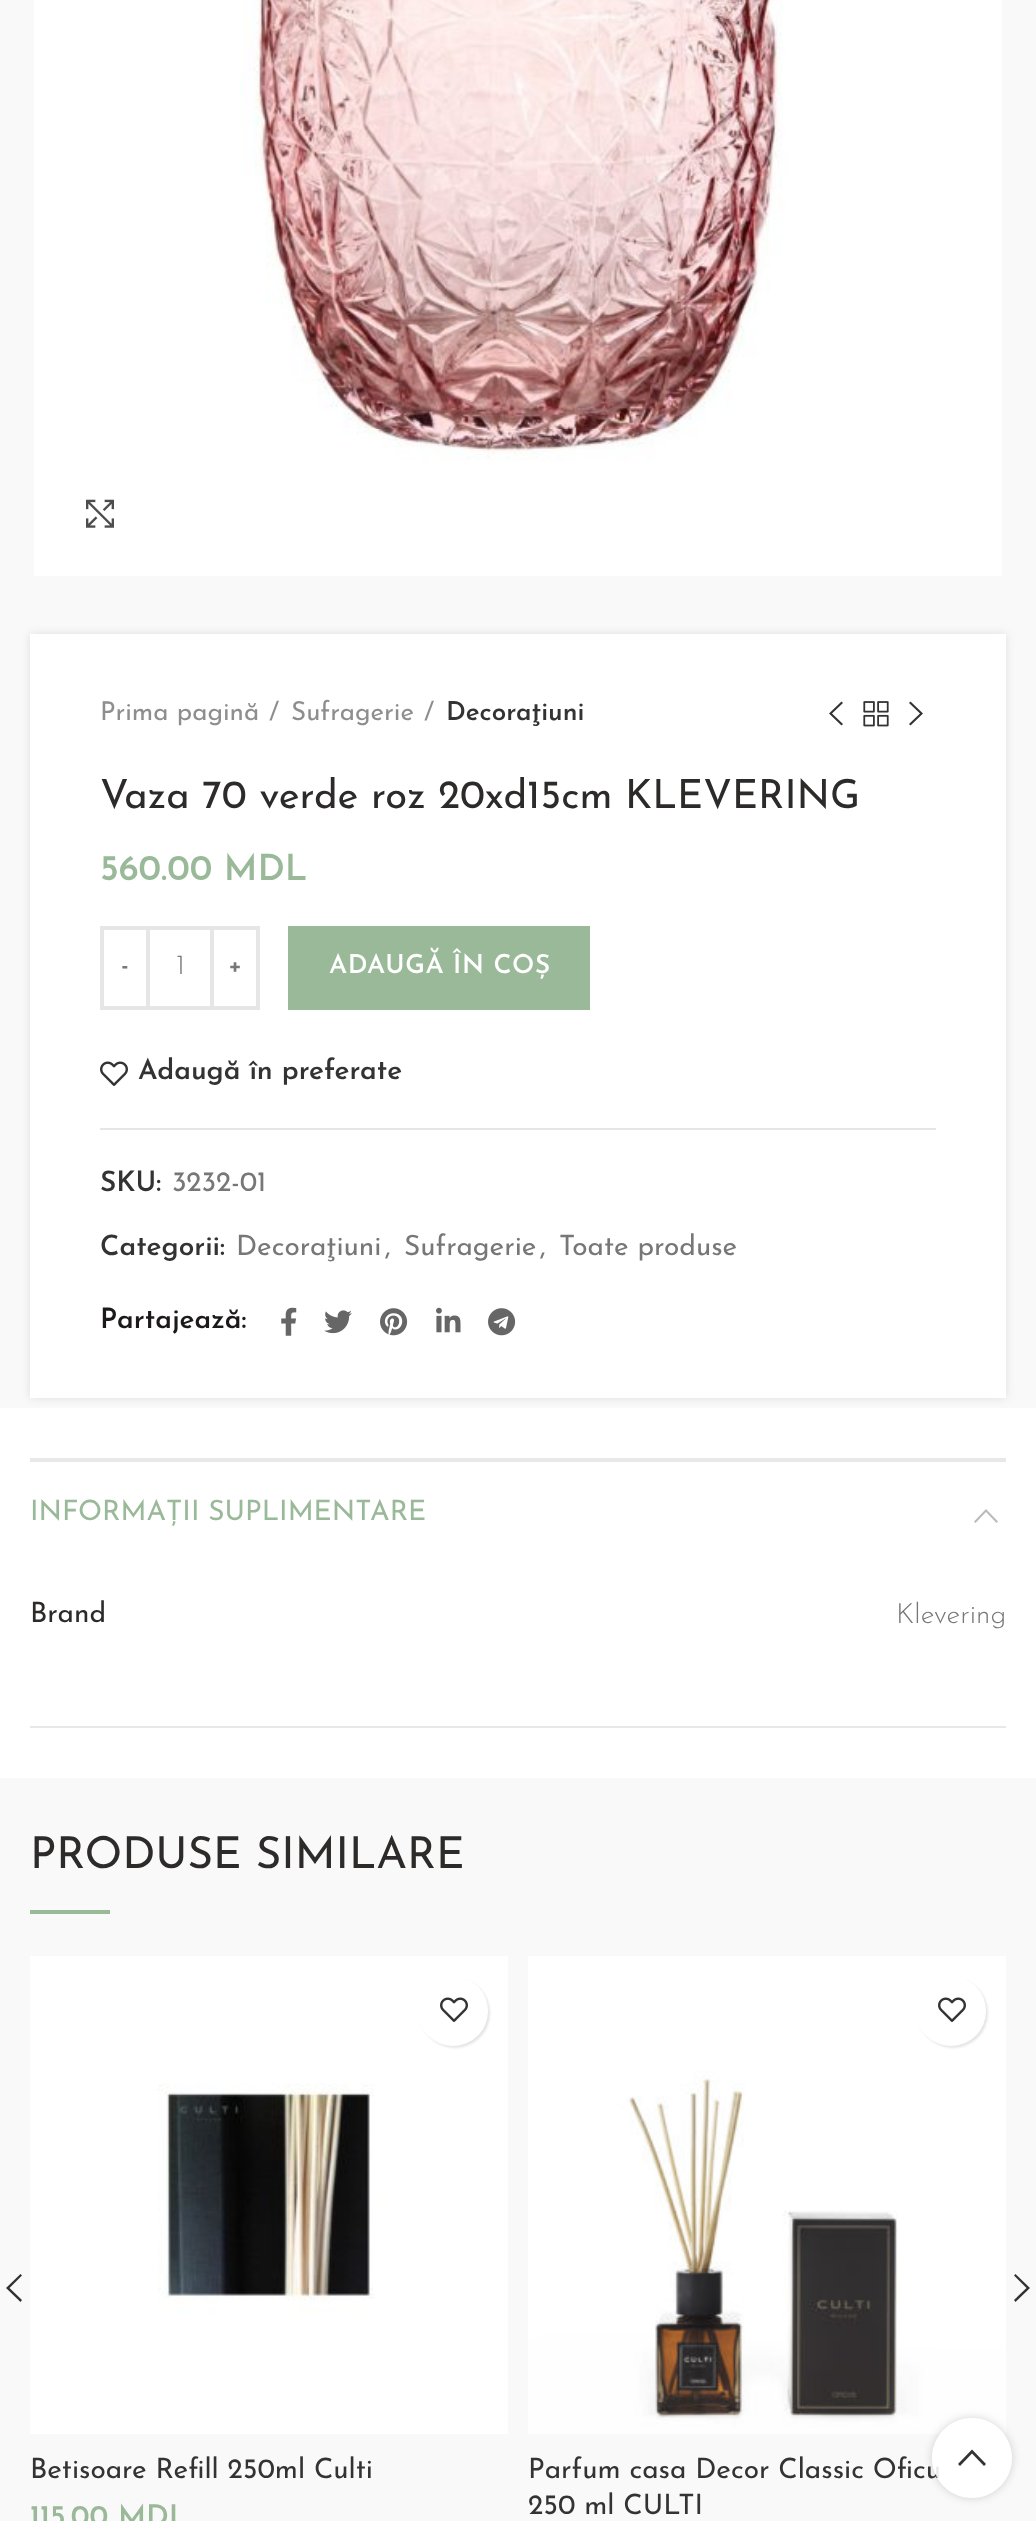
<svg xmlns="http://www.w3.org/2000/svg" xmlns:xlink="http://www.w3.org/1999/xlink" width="1036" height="2521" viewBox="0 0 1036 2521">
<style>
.cls-1{font:26px Josefin Sans;fill:#8e8e8e}
.cls-2{font:600 26px Josefin Sans;fill:#333333}
.cls-3{font:40px Josefin Sans;fill:#2d2a2a}
.cls-4{font:600 36px Josefin Sans;fill:#99b998}
.cls-5{font:600 26px Josefin Sans;letter-spacing:0.6px;fill:#777777}
.cls-6{font:300 28px Josefin Sans;fill:#777777}
.cls-7{font:600 26px Josefin Sans;letter-spacing:0.6px;fill:#ffffff}
.cls-8{font:600 28px Josefin Sans;fill:#333333}
.cls-9{font:28px Josefin Sans;fill:#777777}
.cls-10{font:600 28px Josefin Sans;fill:#1b1919}
.cls-11{font:28px Josefin Sans;fill:#99b998}
.cls-12{font:28px Josefin Sans;fill:#2d2a2a}
.cls-13{font:44px Josefin Sans;fill:#2d2a2a}
.cls-14{font:28px Josefin Sans;fill:#333333}
.cls-15{font:600 30px Josefin Sans;fill:#99b998}
</style>
<defs>
<clipPath id="clip1"><path d="M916 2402H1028V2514H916ZM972 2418C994 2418 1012 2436 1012 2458C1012 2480 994 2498 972 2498C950 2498 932 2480 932 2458C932 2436 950 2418 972 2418Z" clip-rule="evenodd"/></clipPath>
</defs>
<rect width="100%" height="100%" fill="#f9f9f9"/>
<image xlink:href="image0.png" x="34" y="0" width="968" height="576"/>
<image xlink:href="image1.png" x="86" y="499" width="28" height="29"/>
<rect fill="#ffffff" x="0" y="1408" width="1036" height="370"/>
<rect fill="#000000" fill-opacity="0.1" filter="blur(5px)" x="30" y="634" width="976" height="764"/>
<rect fill="#ffffff" x="30" y="634" width="976" height="764"/>
<path fill="#333333" d="M843 703L832 713.5L843 724L841.5 725.5L829 713.5L841.5 701.5Z"/>
<image xlink:href="image2.png" x="863" y="701" width="26" height="26"/>
<path fill="#333333" d="M910.5 701.5L923 713.5L910.5 725.5L909 724L920 713.5L909 703Z"/>
<rect fill="none" stroke="#e6e6e6" stroke-width="4" x="102" y="928" width="46" height="80"/>
<rect fill="#e6e6e6" x="150" y="926" width="60" height="4"/>
<rect fill="#e6e6e6" x="150" y="1006" width="60" height="4"/>
<rect fill="none" stroke="#e6e6e6" stroke-width="4" x="212" y="928" width="46" height="80"/>
<rect fill="#99b998" x="288" y="926" width="302" height="84"/>
<image xlink:href="image3.png" x="100" y="1061" width="28" height="25"/>
<rect fill="#e6e6e6" x="100" y="1128" width="836" height="2"/>
<image xlink:href="image4.png" x="281" y="1307" width="16" height="29"/>
<image xlink:href="image5.png" x="324" y="1310" width="28" height="24"/>
<image xlink:href="image6.png" x="380" y="1308" width="28" height="28"/>
<image xlink:href="image7.png" x="436" y="1307" width="25" height="26"/>
<image xlink:href="image8.png" x="488" y="1308" width="28" height="28"/>
<rect fill="#e8e8e8" x="30" y="1458" width="976" height="4"/>
<rect fill="#e8e8e8" x="30" y="1726" width="976" height="2"/>
<path fill="#bbbbbb" d="M975.5 1523L974 1521.5L986 1509L998 1521.5L996.5 1523L986 1512Z"/>
<rect fill="#99b998" x="30" y="1910" width="80" height="4"/>
<path fill="#323232" d="M22 2275.5L9.5 2288L22 2300L20.5 2302L6 2288L20.5 2274Z"/>
<path fill="#323232" d="M1015.5 2274L1030 2288L1015.5 2302L1014 2300L1026.5 2288L1014 2275.5Z"/>
<image xlink:href="image9.png" x="30" y="1956" width="478" height="478"/>
<rect fill="#000000" fill-opacity="0.1" filter="blur(1px)" x="420" y="1978" width="70" height="70" rx="35"/>
<circle fill="#ffffff" cx="453" cy="2011" r="35"/>
<image xlink:href="image3.png" x="440" y="1997" width="28" height="25"/>
<image xlink:href="image10.png" x="528" y="1956" width="478" height="478"/>
<rect fill="#000000" fill-opacity="0.1" filter="blur(1px)" x="918" y="1978" width="70" height="70" rx="35"/>
<circle fill="#ffffff" cx="951" cy="2011" r="35"/>
<image xlink:href="image3.png" x="938" y="1997" width="28" height="25"/>
<g clip-path="url(#clip1)">
<rect fill="#000000" fill-opacity="0.17" filter="blur(5px)" x="932" y="2418" width="80" height="80" rx="40"/>
</g>
<text class="cls-1" x="100" y="720">Prima pagină</text>
<text class="cls-1" x="269" y="720">/</text>
<text class="cls-1" x="291" y="720">Sufragerie</text>
<text class="cls-1" x="424" y="720">/</text>
<text class="cls-2" x="446" y="720">Decoraţiuni</text>
<text class="cls-3" x="100" y="808">Vaza 70 verde roz 20xd15cm KLEVERING</text>
<text class="cls-4" x="100" y="880">560.00 MDL</text>
<text class="cls-5" x="121" y="973">-</text>
<text class="cls-6" x="176" y="974">1</text>
<text class="cls-5" x="228" y="973">+</text>
<text class="cls-7" x="329" y="973">ADAUGĂ ÎN COȘ</text>
<text class="cls-8" x="138" y="1079">Adaugă în preferate</text>
<text class="cls-8" x="100" y="1191">SKU:</text>
<text class="cls-9" x="172" y="1191">3232-01</text>
<text class="cls-8" x="100" y="1255">Categorii:</text>
<text class="cls-9" x="236" y="1255">Decoraţiuni</text>
<text class="cls-9" x="385" y="1255">,</text>
<text class="cls-9" x="404" y="1255">Sufragerie</text>
<text class="cls-9" x="540" y="1255">,</text>
<text class="cls-9" x="559" y="1255">Toate produse</text>
<text class="cls-10" x="100" y="1328">Partajează:</text>
<text class="cls-11" x="30" y="1520">INFORMAȚII SUPLIMENTARE</text>
<text class="cls-12" x="30" y="1622">Brand</text>
<text class="cls-6" x="896" y="1623">Klevering</text>
<text class="cls-13" x="30" y="1868">PRODUSE SIMILARE</text>
<text class="cls-14" x="30" y="2478">Betisoare Refill 250ml Culti</text>
<text class="cls-15" x="30" y="2526">115.00 MDL</text>
<text class="cls-14"><tspan x="528" y="2478">Parfum casa Decor Classic Oficu</tspan><tspan x="528" y="2514">250 ml CULTI</tspan></text>
<circle fill="#ffffff" fill-opacity="0.9" cx="972" cy="2458" r="40"/>
<path fill="#333333" d="M972 2449.5L986 2464L984 2466L972 2453.5L960 2466L958 2464Z"/>
</svg>
